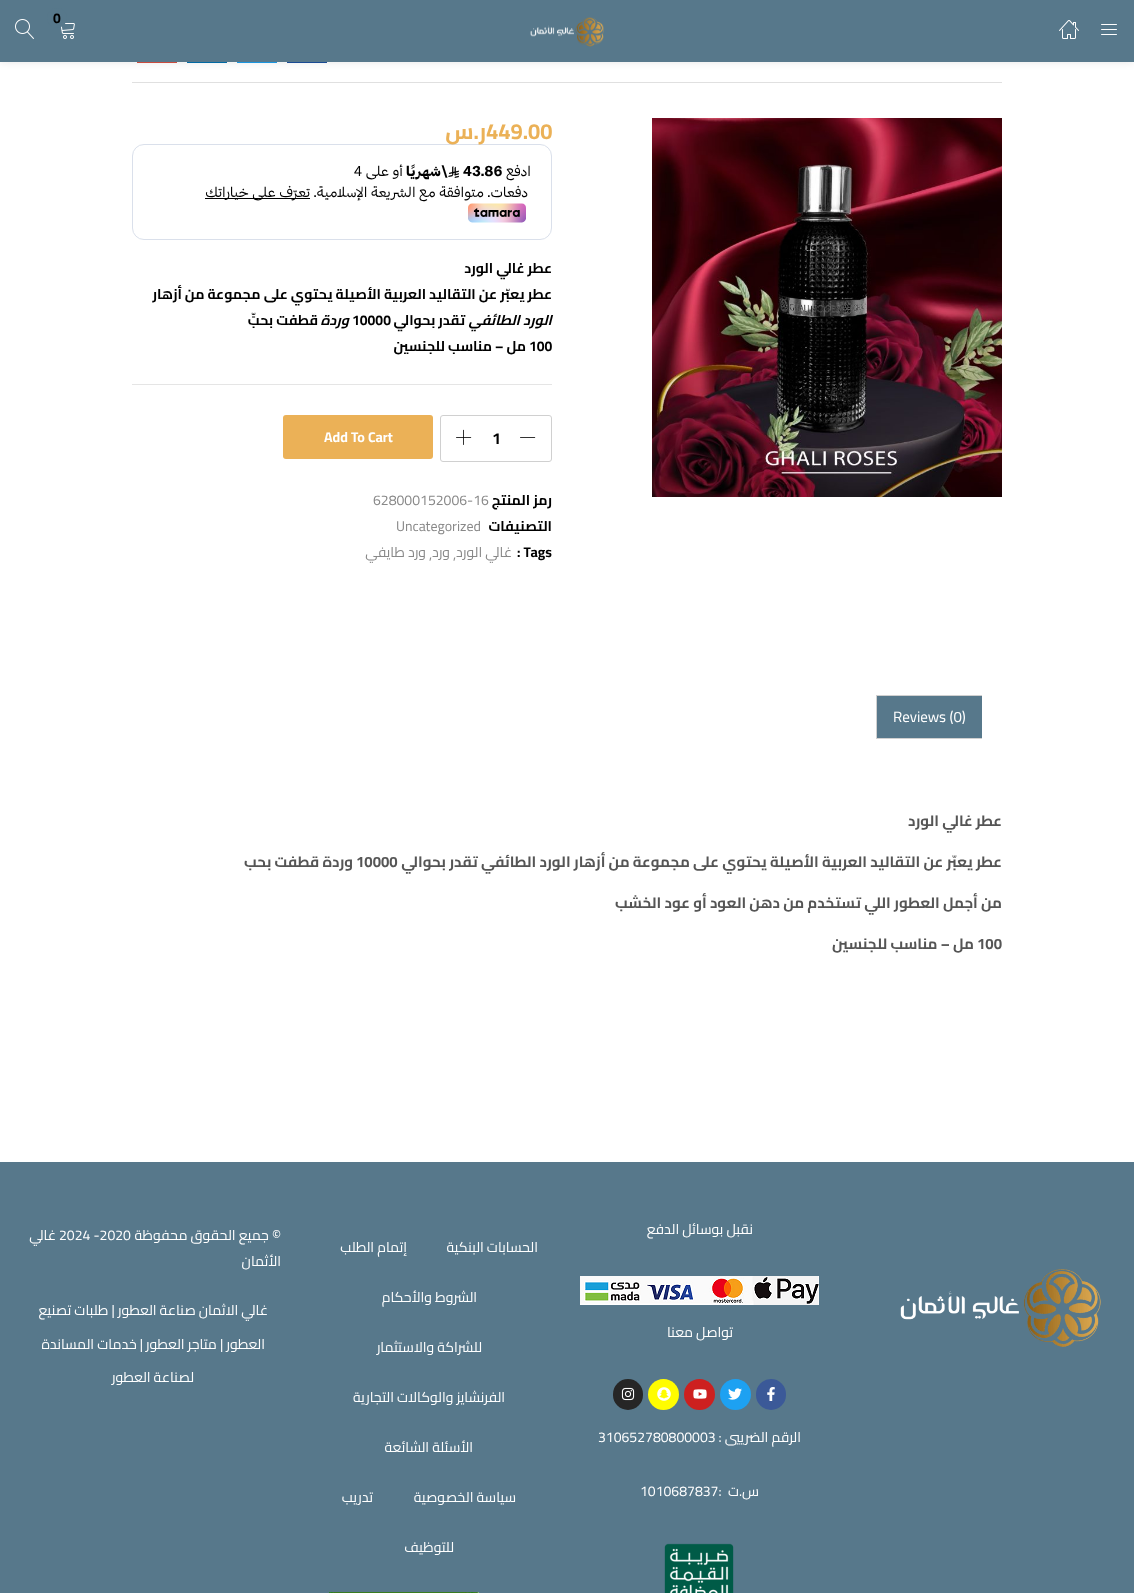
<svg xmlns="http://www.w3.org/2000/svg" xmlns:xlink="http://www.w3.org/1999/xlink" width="1134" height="1593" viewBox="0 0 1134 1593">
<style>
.cls-1{font:bold 14px Cairo;fill:#000000}
.cls-2{font:bold 22px Cairo;fill:#ebb157}
.cls-3{font:bold 22px Cairo;direction:rtl;fill:#ebb157}
.cls-4{font:14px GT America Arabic;direction:rtl;fill:#000000}
.cls-5{font:bold 14px GT America Arabic;fill:#000000}
.cls-6{font:bold 14px GT America Arabic;direction:rtl;fill:#000000}
.cls-7{font:14px GT America Arabic;fill:#000000}
.cls-8{font:bold 14px Cairo;direction:rtl;fill:#000000}
.cls-9{font:italic bold 14px Cairo;direction:rtl;fill:#000000}
.cls-10{font:bold 16px Cairo;fill:#000000}
.cls-11{font:bold 14px Cairo;fill:#ffffff}
.cls-12{font:14px Cairo;fill:#888888}
.cls-13{font:14px Cairo;direction:rtl;fill:#888888}
.cls-14{font:15px Cairo;fill:#ffffff}
.cls-15{font:bold 15px Cairo;direction:rtl;fill:#555555}
.cls-16{font:bold 15px Cairo;fill:#555555}
.cls-17{font:14px Cairo;direction:rtl;fill:#ffffff}
.cls-18{font:14px Cairo;fill:#ffffff}
</style>
<rect width="100%" height="100%" fill="#ffffff"/>
<rect fill="#1b4e9b" x="287" y="62" width="40" height="1"/>
<rect fill="#1c9deb" x="237" y="62" width="40" height="1"/>
<rect fill="#026fac" x="187" y="62" width="40" height="1"/>
<rect fill="#d44f42" x="137" y="62" width="40" height="1"/>
<rect fill="#000000" fill-opacity="0.1" filter="blur(4px)" x="0" y="0" width="1134" height="62"/>
<rect fill="#57788b" x="0" y="0" width="1134" height="62"/>
<image xlink:href="image0.png" x="1101" y="24" width="16" height="11"/>
<image xlink:href="image1.png" x="1059" y="20" width="20" height="19"/>
<image xlink:href="image2.png" x="530" y="17" width="74" height="30"/>
<image xlink:href="image3.png" x="61" y="23" width="14" height="16"/>
<circle fill="#57788b" cx="57" cy="18" r="10"/>
<image xlink:href="image4.png" x="15" y="19" width="19" height="20"/>
<rect fill="#e0e0e0" x="132" y="82" width="870" height="1"/>
<image xlink:href="image5.png" x="652" y="118" width="350" height="379"/>
<rect fill="none" stroke="#dae0eb" x="132.5" y="144.5" width="419" height="95" rx="11.5"/>
<image xlink:href="image6.png" x="448" y="166" width="11" height="12"/>
<rect fill="#000000" x="205" y="198" width="105" height="1"/>
<image xlink:href="image7.png" x="468" y="203" width="58" height="20"/>
<rect fill="#e5e5e5" x="132" y="384" width="420" height="1"/>
<rect fill="none" stroke="#d0d0d0" x="440.5" y="415.5" width="111" height="46" rx="2.5"/>
<image xlink:href="image8.png" x="520" y="437" width="16" height="1"/>
<image xlink:href="image9.png" x="456" y="429" width="16" height="16"/>
<rect fill="#ebb157" x="283" y="415" width="150" height="44" rx="3"/>
<rect fill="#d0d0d0" x="876" y="695" width="106" height="1"/>
<rect fill="#d0d0d0" x="876" y="738" width="106" height="1"/>
<rect fill="#d0d0d0" x="876" y="695" width="1" height="44"/>
<rect fill="#57788b" x="877" y="696" width="105" height="42"/>
<rect fill="#57788b" x="0" y="1162" width="1134" height="431"/>
<image xlink:href="image10.png" x="900" y="1269" width="201" height="78"/>
<image xlink:href="image11.png" x="580" y="1276" width="239" height="29"/>
<rect fill="#3b5998" x="756" y="1379" width="30" height="31" rx="15"/>
<image xlink:href="image12.png" x="767" y="1387" width="8" height="14"/>
<circle fill="#1da1f2" cx="735.5" cy="1394.5" r="15.5"/>
<image xlink:href="image13.png" x="728" y="1388" width="14" height="12"/>
<circle fill="#cd201f" cx="699.5" cy="1394.5" r="15.5"/>
<image xlink:href="image14.png" x="693" y="1389" width="14" height="10"/>
<circle fill="#fffc00" cx="663.5" cy="1394.5" r="15.5"/>
<image xlink:href="image15.png" x="657" y="1387" width="14" height="14"/>
<rect fill="#262626" x="613" y="1379" width="30" height="31" rx="15"/>
<image xlink:href="image16.png" x="621" y="1387" width="14" height="14"/>
<image xlink:href="image17.png" x="664" y="1543" width="70" height="50"/>
<image xlink:href="image18.png" x="329" y="1592" width="150" height="1"/>
<text class="cls-1" x="53" y="23">0</text>
<text class="cls-2" x="486" y="139">449.00</text>
<text class="cls-3" x="486" y="139">ر.س</text>
<text class="cls-4" x="531" y="176">ادفع</text>
<text class="cls-5" x="463" y="176">43.86</text>
<text class="cls-6" x="448" y="176">\شهريًا</text>
<text class="cls-4" x="403" y="176">أو على</text>
<text class="cls-7" x="354" y="176">4</text>
<text class="cls-4" x="528" y="197">دفعات. متوافقة مع الشريعة الإسلامية.</text>
<text class="cls-4" x="310" y="197">تعرّف على خياراتك</text>
<text class="cls-8"><tspan x="552" y="273">عطر غالي الورد</tspan><tspan x="552" y="299">عطر يعبّر عن التقاليد العربية الأصيلة يحتوي على مجموعة من أزهار</tspan></text>
<text class="cls-9" x="552" y="325">الورد الطائفي</text>
<text class="cls-8" x="465" y="325">تقدر بحوالي</text>
<text class="cls-1" x="352" y="325">10000</text>
<text class="cls-9" x="349" y="325">وردة</text>
<text class="cls-8" x="318" y="325">قطفت بحبٍّ</text>
<text class="cls-1" x="529" y="351">100</text>
<text class="cls-8" x="526" y="351">مل – مناسب للجنسين</text>
<text class="cls-10" x="492" y="444">1</text>
<text class="cls-11" x="324" y="442">Add To Cart</text>
<text class="cls-8" x="552" y="505">رمز المنتج</text>
<text class="cls-12" x="373" y="505">628000152006-16</text>
<text class="cls-8" x="552" y="531">التصنيفات</text>
<text class="cls-12" x="396" y="531">Uncategorized</text>
<text class="cls-1" x="517" y="557">: Tags</text>
<text class="cls-13" x="512" y="557">غالي الورد</text>
<text class="cls-12" x="453" y="559">,</text>
<text class="cls-13" x="450" y="557">ورد</text>
<text class="cls-12" x="429" y="559">,</text>
<text class="cls-13" x="426" y="557">ورد طايفي</text>
<text class="cls-14" x="893" y="722">Reviews (0)</text>
<text class="cls-15" x="1002" y="826">عطر غالي الورد</text>
<text class="cls-15" x="1002" y="867">عطر يعبّر عن التقاليد العربية الأصيلة يحتوي على مجموعة من أزهار الورد الطائفي تقدر بحوالي</text>
<text class="cls-16" x="356" y="867">10000</text>
<text class="cls-15" x="353" y="867">وردة قطفت بحب</text>
<text class="cls-15" x="1002" y="908">من أجمل العطور اللي تستخدم من دهن العود أو عود الخشب</text>
<text class="cls-16" x="977" y="949">100</text>
<text class="cls-15" x="974" y="949">مل – مناسب للجنسين</text>
<text class="cls-17" x="753" y="1234">نقبل بوسائل الدفع</text>
<text class="cls-17" x="733" y="1337">تواصل معنا</text>
<text class="cls-17" x="801" y="1442">الرقم الضرييي :</text>
<text class="cls-18" x="598" y="1442">310652780800003</text>
<text class="cls-17" x="759" y="1496">س.ت</text>
<text class="cls-18" x="640" y="1496">1010687837:</text>
<text class="cls-17" x="538" y="1252">الحسابات البنكية</text>
<text class="cls-17" x="407" y="1252">إتمام الطلب</text>
<text class="cls-17" x="477" y="1302">الشروط والأحكام</text>
<text class="cls-17" x="482" y="1352">للشراكة والاستثمار</text>
<text class="cls-17" x="505" y="1402">الفرنشايز والوكالات التجارية</text>
<text class="cls-17" x="473" y="1452">الأسئلة الشائعة</text>
<text class="cls-17" x="516" y="1502">سياسة الخصوصية</text>
<text class="cls-17" x="373" y="1502">تدريب</text>
<text class="cls-17" x="454" y="1552">للتوظيف</text>
<text class="cls-17" x="281" y="1240">© جميع الحقوق محفوظة</text>
<text class="cls-18" x="59" y="1240">2024 -2020</text>
<text class="cls-17" x="56" y="1240">غالي</text>
<text class="cls-17" x="281" y="1266">الأثمان</text>
<text class="cls-17" x="268" y="1315">غالي الاثمان صناعة العطور | طلبات تصنيع</text>
<text class="cls-17" x="265" y="1349">العطور | متاجر العطور</text>
<text class="cls-17" x="143" y="1349">| خدمات المساندة</text>
<text class="cls-17" x="194" y="1382">لصناعة العطور</text>
</svg>
